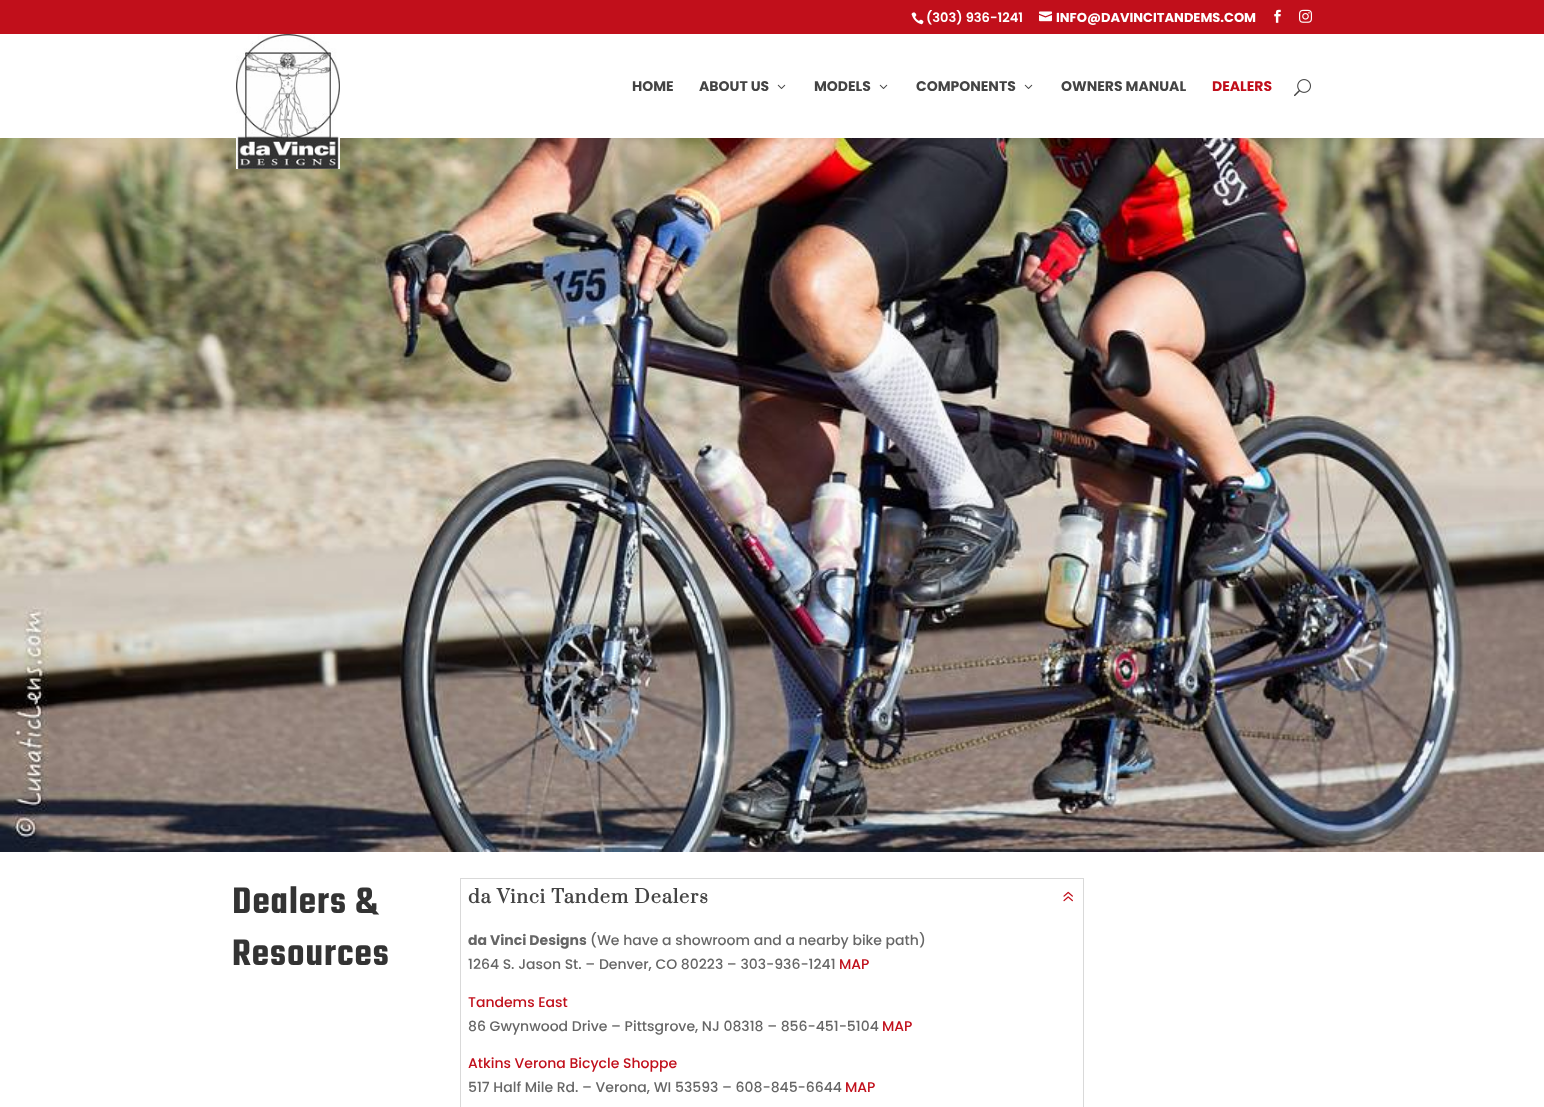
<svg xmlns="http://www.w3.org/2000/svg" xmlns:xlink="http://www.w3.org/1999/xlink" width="1544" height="1107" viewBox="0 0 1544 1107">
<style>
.cls-1{font:600 13px Poppins;fill:#ffffff}
.cls-2{font:bold 13px Poppins;fill:#ffffff}
.cls-3{font:bold 14px Poppins;fill:#444444}
.cls-4{font:bold 14px Poppins;fill:#c10f1b}
.cls-5{font:600 40px Teko;letter-spacing:1px;fill:#333333}
.cls-6{font:bold 18px Prata;letter-spacing:1px;fill:#444444}
.cls-7{font:bold 14px Poppins;fill:#666666}
.cls-8{font:500 14px Poppins;fill:#666666}
.cls-9{font:500 14px Poppins;fill:#c10f1b}
</style>
<rect width="100%" height="100%" fill="#ffffff"/>
<image xlink:href="image7.png" x="0" y="138" width="1544" height="714"/>
<rect fill="#000000" fill-opacity="0.1" filter="blur(3.5px)" x="0" y="34" width="1544" height="104"/>
<rect fill="#c10f1b" x="0" y="0" width="1544" height="34"/>
<image xlink:href="image0.png" x="911" y="12" width="13" height="13"/>
<image xlink:href="image1.png" x="1039" y="11" width="13" height="11"/>
<image xlink:href="image2.png" x="1274" y="9" width="7" height="14"/>
<image xlink:href="image3.png" x="1299" y="9" width="13" height="14"/>
<rect fill="#ffffff" x="0" y="34" width="1544" height="104"/>
<image xlink:href="image4.png" x="236" y="34" width="104" height="135"/>
<image xlink:href="image5.png" x="777" y="84" width="9" height="5"/>
<image xlink:href="image5.png" x="879" y="84" width="9" height="5"/>
<image xlink:href="image5.png" x="1024" y="84" width="9" height="5"/>
<image xlink:href="image6.png" x="1294" y="79" width="17" height="18"/>
<rect fill="none" stroke="#d9d9d9" x="460.5" y="878.5" width="623" height="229"/>
<image xlink:href="image8.png" x="1063" y="891" width="10" height="11"/>
<text class="cls-1" x="926" y="22">(303) 936-1241</text>
<text class="cls-2" x="1056" y="22">INFO@DAVINCITANDEMS.COM</text>
<text class="cls-3" x="632" y="91">HOME</text>
<text class="cls-3" x="699" y="91">ABOUT US</text>
<text class="cls-3" x="814" y="91">MODELS</text>
<text class="cls-3" x="916" y="91">COMPONENTS</text>
<text class="cls-3" x="1061" y="91">OWNERS MANUAL</text>
<text class="cls-4" x="1212" y="91">DEALERS</text>
<text class="cls-5"><tspan x="232" y="913">Dealers &amp;</tspan><tspan x="232" y="965">Resources</tspan></text>
<text class="cls-6" x="468" y="903">da Vinci Tandem Dealers</text>
<text class="cls-7" x="468" y="945">da Vinci Designs</text>
<text class="cls-8" x="590" y="945">(We have a showroom and a nearby bike path)</text>
<text class="cls-8" x="468" y="969">1264 S. Jason St. – Denver, CO 80223 – 303-936-1241</text>
<text class="cls-9" x="839" y="969">MAP</text>
<text class="cls-9" x="468" y="1007">Tandems East</text>
<text class="cls-8" x="468" y="1031">86 Gwynwood Drive – Pittsgrove, NJ 08318 – 856-451-5104</text>
<text class="cls-9" x="882" y="1031">MAP</text>
<text class="cls-9" x="468" y="1068">Atkins Verona Bicycle Shoppe</text>
<text class="cls-8" x="468" y="1092">517 Half Mile Rd. – Verona, WI 53593 – 608-845-6644</text>
<text class="cls-9" x="845" y="1092">MAP</text>
</svg>
